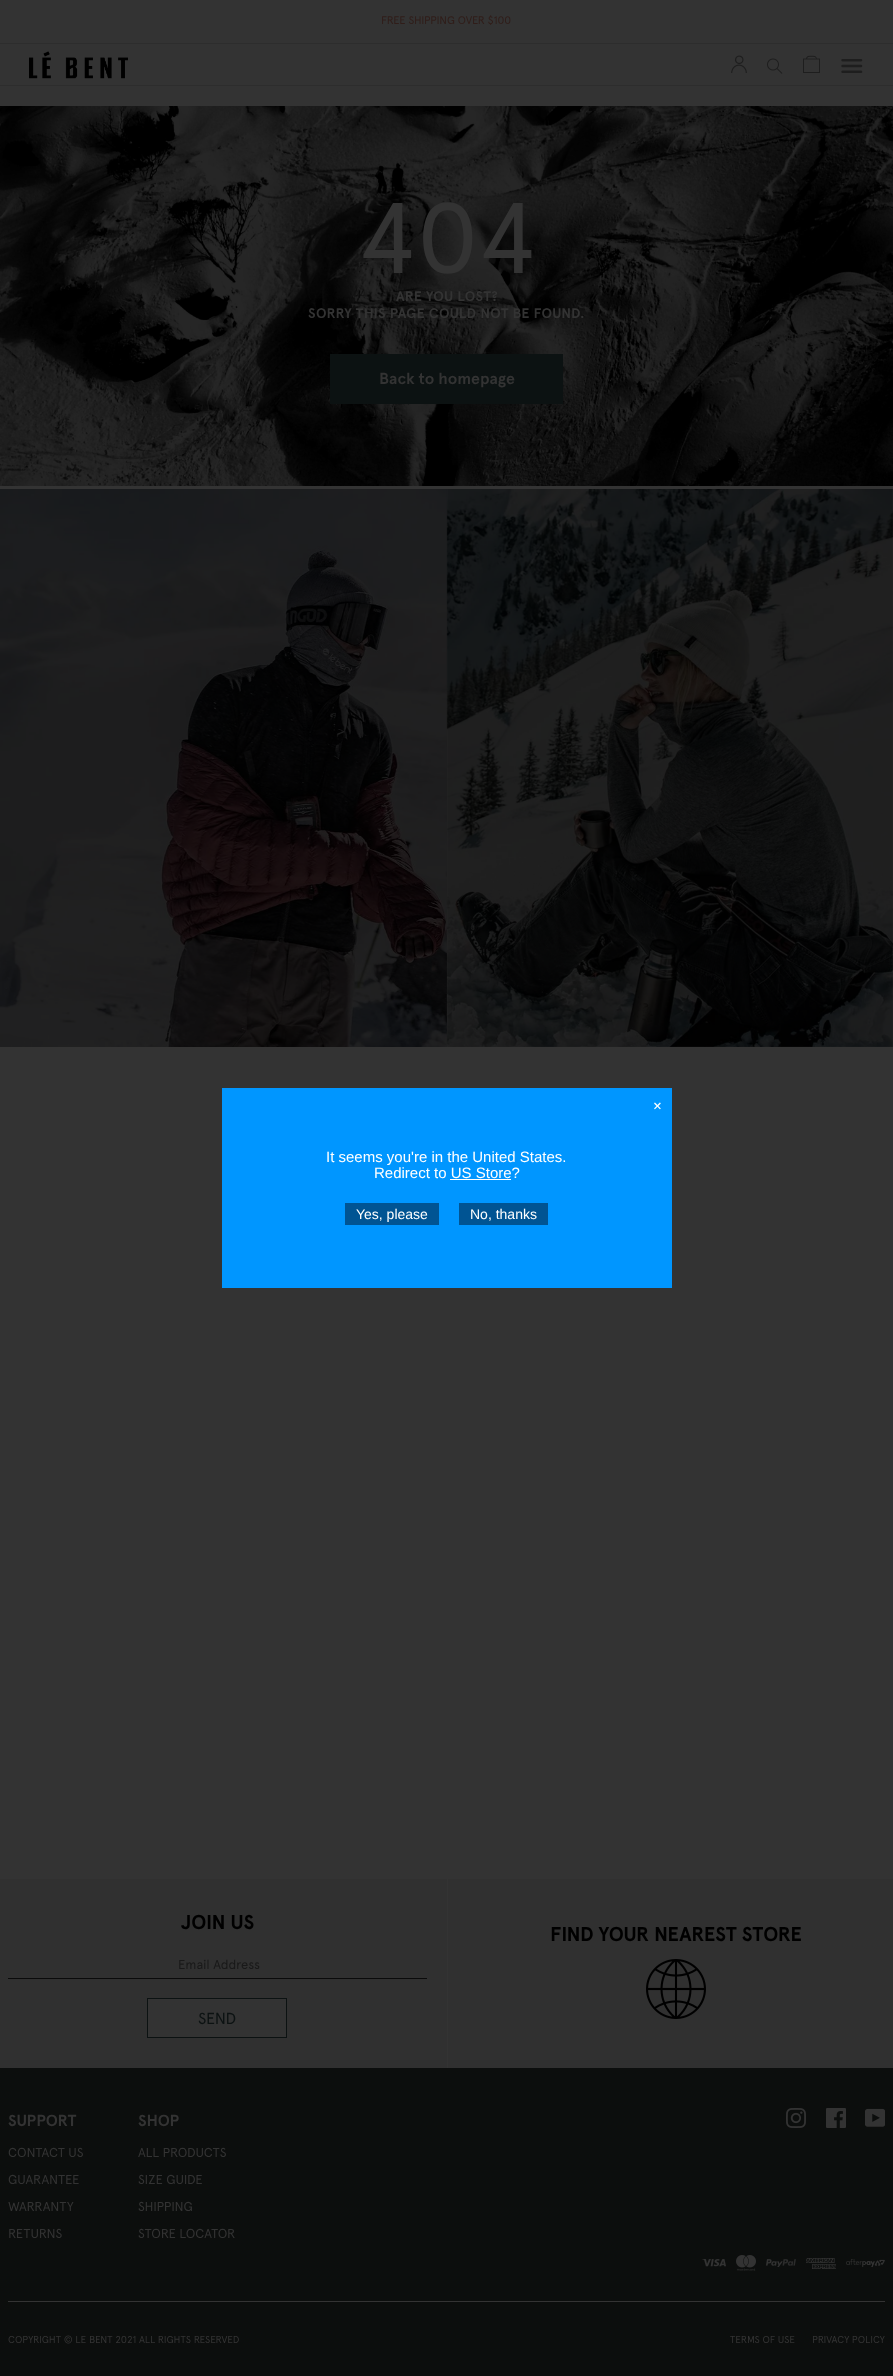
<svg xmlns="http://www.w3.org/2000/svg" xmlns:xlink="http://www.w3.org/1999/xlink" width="893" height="2376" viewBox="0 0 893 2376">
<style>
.cls-1{font:11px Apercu;fill:#301d19}
.cls-2{font:100px Apercu;fill:#333333}
.cls-3{font:bold 14px Apercu;letter-spacing:0.3px;fill:#333333}
.cls-4{font:bold 16px Apercu;fill:#333333}
.cls-5{font:bold 20px Apercu;fill:#000000}
.cls-6{font:13px Apercu;fill:#191919}
.cls-7{font:16px Apercu;fill:#0c1212}
.cls-8{font:13px Apercu;fill:#333333}
.cls-9{font:10px Apercu;fill:#333333}
.cls-10{font:16px Apercu;fill:#ffffff}
.cls-11{font:15px Liberation Sans;fill:#ffffff}
.cls-12{font:14px Liberation Sans;fill:#ffffff}
</style>
<rect width="100%" height="100%" fill="#333333"/>
<rect fill="#2d2d2d" x="0" y="43" width="893" height="1"/>
<rect fill="#2d2d2d" x="0" y="85" width="893" height="1"/>
<image xlink:href="image0.png" x="29" y="51" width="99" height="28"/>
<image xlink:href="image1.png" x="731" y="55" width="16" height="18"/>
<image xlink:href="image2.png" x="767" y="58" width="16" height="16"/>
<image xlink:href="image3.png" x="803" y="55" width="17" height="18"/>
<image xlink:href="image4.png" x="841" y="59" width="22" height="14"/>
<image xlink:href="image5.png" x="0" y="106" width="893" height="380"/>
<rect fill="#0c1212" x="330" y="354" width="233" height="50"/>
<image xlink:href="image6.png" x="0" y="489" width="447" height="558"/>
<image xlink:href="image7.png" x="446" y="489" width="447" height="558"/>
<rect fill="#303030" x="0" y="1879" width="893" height="189"/>
<rect fill="#0a0a0a" x="8" y="1978" width="419" height="1"/>
<rect fill="#333333" stroke="#0c1212" x="147.5" y="1998.5" width="139" height="39"/>
<rect fill="#333333" x="447" y="1879" width="1" height="189"/>
<image xlink:href="image8.png" x="646" y="1959" width="60" height="60"/>
<rect fill="#0c0e0d" x="0" y="2068" width="893" height="308"/>
<image xlink:href="image9.png" x="786" y="2108" width="20" height="20"/>
<image xlink:href="image10.png" x="826" y="2108" width="20" height="20"/>
<image xlink:href="image11.png" x="865" y="2108" width="20" height="19"/>
<image xlink:href="image12.png" x="702" y="2259" width="24" height="8"/>
<image xlink:href="image13.png" x="736" y="2255" width="20" height="16"/>
<image xlink:href="image14.png" x="766" y="2259" width="30" height="8"/>
<image xlink:href="image15.png" x="806" y="2258" width="30" height="11"/>
<image xlink:href="image16.png" x="846" y="2259" width="39" height="8"/>
<rect fill="#333333" x="8" y="2301" width="877" height="1"/>
<rect fill="#0096ff" x="222" y="1088" width="450" height="200"/>
<rect fill="#ffffff" x="450" y="1179" width="61" height="1"/>
<rect fill="#005493" x="345" y="1203" width="94" height="22"/>
<rect fill="#005493" x="459" y="1203" width="89" height="22"/>
<text class="cls-1" x="381" y="24">FREE SHIPPING OVER $100</text>
<text class="cls-2" x="357" y="273">404</text>
<text class="cls-3" x="396" y="301">ARE YOU LOST?</text>
<text class="cls-3" x="308" y="318">SORRY THIS PAGE COULD NOT BE FOUND.</text>
<text class="cls-4" x="379" y="384">Back to homepage</text>
<text class="cls-5" x="181" y="1929">JOIN US</text>
<text class="cls-6" x="178" y="1969">Email Address</text>
<text class="cls-7" x="198" y="2024">SEND</text>
<text class="cls-5" x="550" y="1941">FIND YOUR NEAREST STORE</text>
<text class="cls-4" x="8" y="2126">SUPPORT</text>
<text class="cls-8" x="8" y="2157">CONTACT US</text>
<text class="cls-8" x="8" y="2184">GUARANTEE</text>
<text class="cls-8" x="8" y="2211">WARRANTY</text>
<text class="cls-8" x="8" y="2238">RETURNS</text>
<text class="cls-4" x="138" y="2126">SHOP</text>
<text class="cls-8" x="138" y="2157">ALL PRODUCTS</text>
<text class="cls-8" x="138" y="2184">SIZE GUIDE</text>
<text class="cls-8" x="138" y="2211">SHIPPING</text>
<text class="cls-8" x="138" y="2238">STORE LOCATOR</text>
<text class="cls-9" x="8" y="2343">COPYRIGHT © LE BENT 2021 ALL RIGHTS RESERVED</text>
<text class="cls-9" x="730" y="2343">TERMS OF USE</text>
<text class="cls-9" x="812" y="2343">PRIVACY POLICY</text>
<text class="cls-10" x="653" y="1111">×</text>
<text class="cls-11" x="326" y="1162">It seems you're in the United States.</text>
<text class="cls-11" x="374" y="1178">Redirect to US Store?</text>
<text class="cls-12" x="356" y="1219">Yes, please</text>
<text class="cls-12" x="470" y="1219">No, thanks</text>
</svg>
